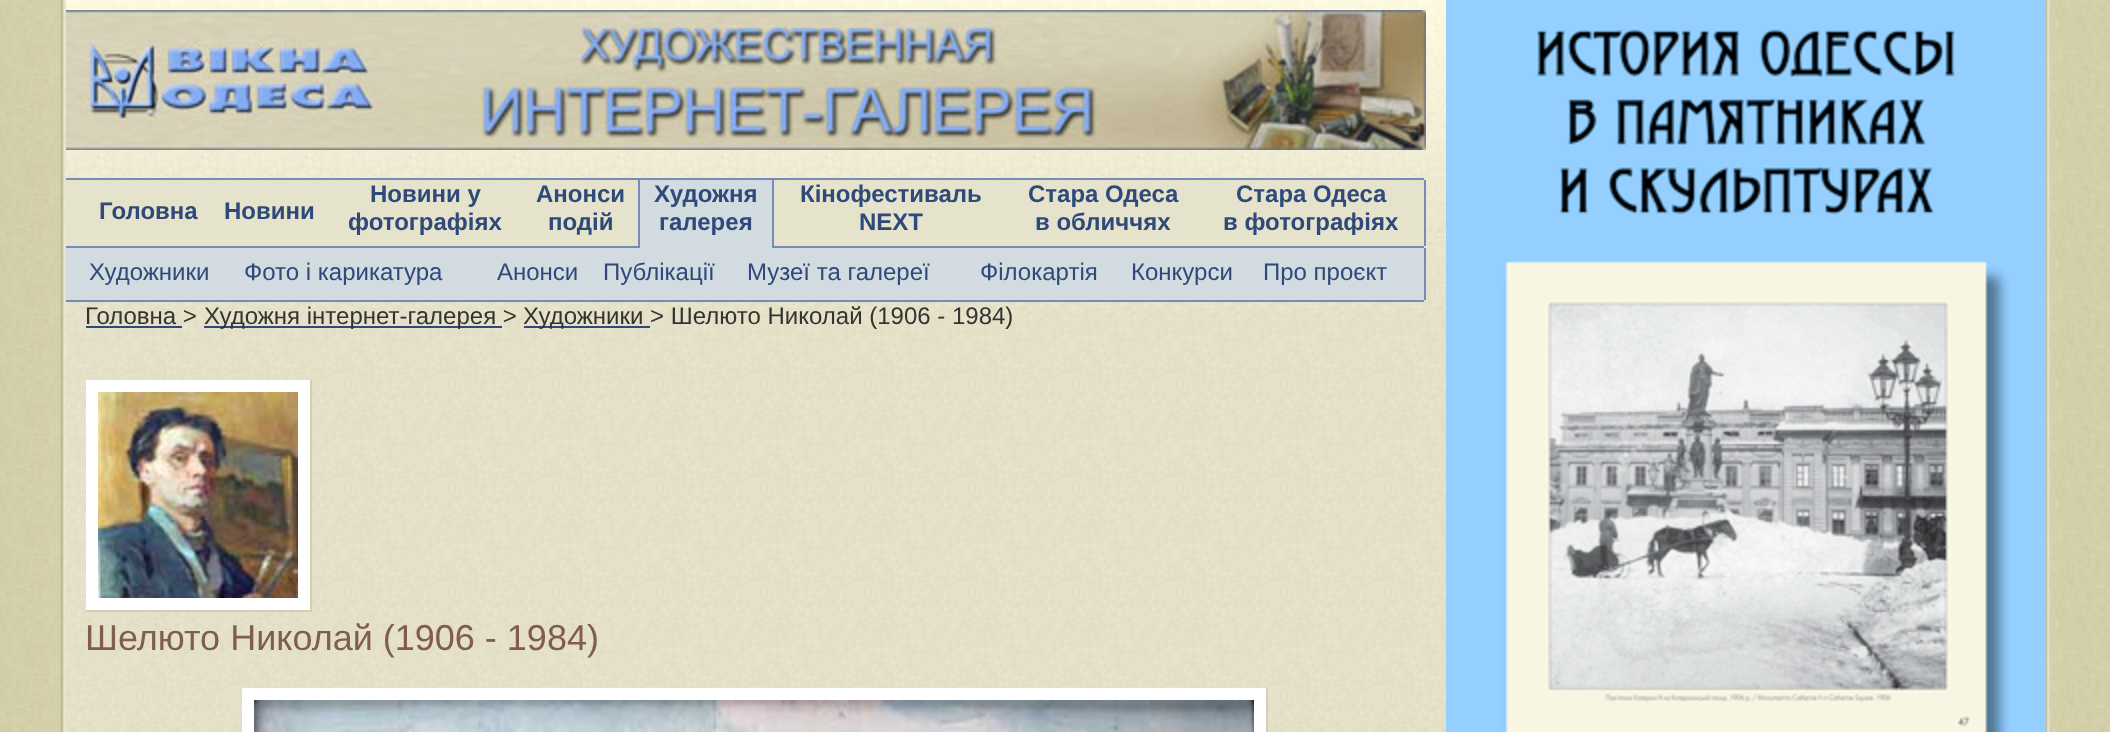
<svg xmlns="http://www.w3.org/2000/svg" xmlns:xlink="http://www.w3.org/1999/xlink" width="2110" height="732" viewBox="0 0 2110 732">
<style>
.cls-1{font:bold 24px Liberation Sans;fill:#2e497a}
.cls-2{font:24px Liberation Sans;fill:#2e497a}
.cls-3{font:24px Liberation Sans;fill:#333333}
.cls-4{font:36px Liberation Sans;fill:#805c51}
</style>
<rect width="100%" height="100%" fill="#ffffff"/>
<image xlink:href="image0.png" x="0" y="0" width="2110" height="732"/>
<image xlink:href="image1.png" x="66" y="320" width="1380" height="412"/>
<image xlink:href="image2.png" x="66" y="0" width="1380" height="320"/>
<image xlink:href="image3.png" x="66" y="10" width="1360" height="140"/>
<path fill="#e5e3cc" d="M66 178H1422C1424 178 1426 180 1426 182V244C1426 246 1424 248 1422 248H66Z"/>
<rect fill="#768bb7" x="66" y="178" width="1358" height="2"/>
<rect fill="#768bb7" x="1424" y="180" width="2" height="66"/>
<rect fill="#d1dbe0" x="640" y="180" width="132" height="66"/>
<rect fill="#768bb7" x="772" y="180" width="2" height="66"/>
<rect fill="#768bb7" x="638" y="180" width="2" height="66"/>
<path fill="#d1dbe0" d="M66 246H1422C1424 246 1426 248 1426 250V298C1426 300 1424 302 1422 302H66Z"/>
<rect fill="#768bb7" x="66" y="246" width="1358" height="2"/>
<rect fill="#d1dbe0" x="640" y="246" width="132" height="2"/>
<rect fill="#768bb7" x="1424" y="248" width="2" height="52"/>
<rect fill="#768bb7" x="66" y="300" width="1358" height="2"/>
<rect fill="#2e497a" x="86" y="326" width="96" height="2"/>
<rect fill="#2e497a" x="204" y="326" width="298" height="2"/>
<rect fill="#2e497a" x="524" y="326" width="126" height="2"/>
<image xlink:href="image4.png" x="1446" y="0" width="600" height="732"/>
<rect fill="#ffffff" x="86" y="380" width="224" height="230"/>
<rect fill="#d2ceb7" x="310" y="380" width="2" height="232"/>
<image xlink:href="image5.png" x="98" y="392" width="200" height="206"/>
<rect fill="#d1cdb6" x="86" y="610" width="226" height="2"/>
<rect fill="#ffffff" x="242" y="688" width="1024" height="44"/>
<rect fill="#d2ceb7" x="1266" y="688" width="2" height="44"/>
<image xlink:href="image6.png" x="254" y="700" width="1000" height="32"/>
<text class="cls-1" x="99" y="219">Головна</text>
<text class="cls-1" x="224" y="219">Новини</text>
<text class="cls-1" x="370" y="202">Новини у</text>
<text class="cls-1" x="348" y="230">фотографіях</text>
<text class="cls-1" x="536" y="202">Анонси</text>
<text class="cls-1" x="548" y="230">подій</text>
<text class="cls-1" x="654" y="202">Художня</text>
<text class="cls-1" x="659" y="230">галерея</text>
<text class="cls-1" x="800" y="202">Кінофестиваль</text>
<text class="cls-1" x="859" y="230">NEXT</text>
<text class="cls-1" x="1028" y="202">Стара Одеса</text>
<text class="cls-1" x="1035" y="230">в обличчях</text>
<text class="cls-1" x="1236" y="202">Стара Одеса</text>
<text class="cls-1" x="1223" y="230">в фотографіях</text>
<text class="cls-2" x="89" y="280">Художники</text>
<text class="cls-2" x="244" y="280">Фото і карикатура</text>
<text class="cls-2" x="497" y="280">Анонси</text>
<text class="cls-2" x="603" y="280">Публікації</text>
<text class="cls-2" x="747" y="280">Музеї та галереї</text>
<text class="cls-2" x="980" y="280">Філокартія</text>
<text class="cls-2" x="1131" y="280">Конкурси</text>
<text class="cls-2" x="1263" y="280">Про проєкт</text>
<text class="cls-3" x="85" y="324">Головна &gt;</text>
<text class="cls-3" x="204" y="324">Художня інтернет-галерея &gt;</text>
<text class="cls-3" x="523" y="324">Художники &gt; Шелюто Николай (1906 - 1984)</text>
<text class="cls-4" x="85" y="650">Шелюто Николай (1906 - 1984)</text>
</svg>
